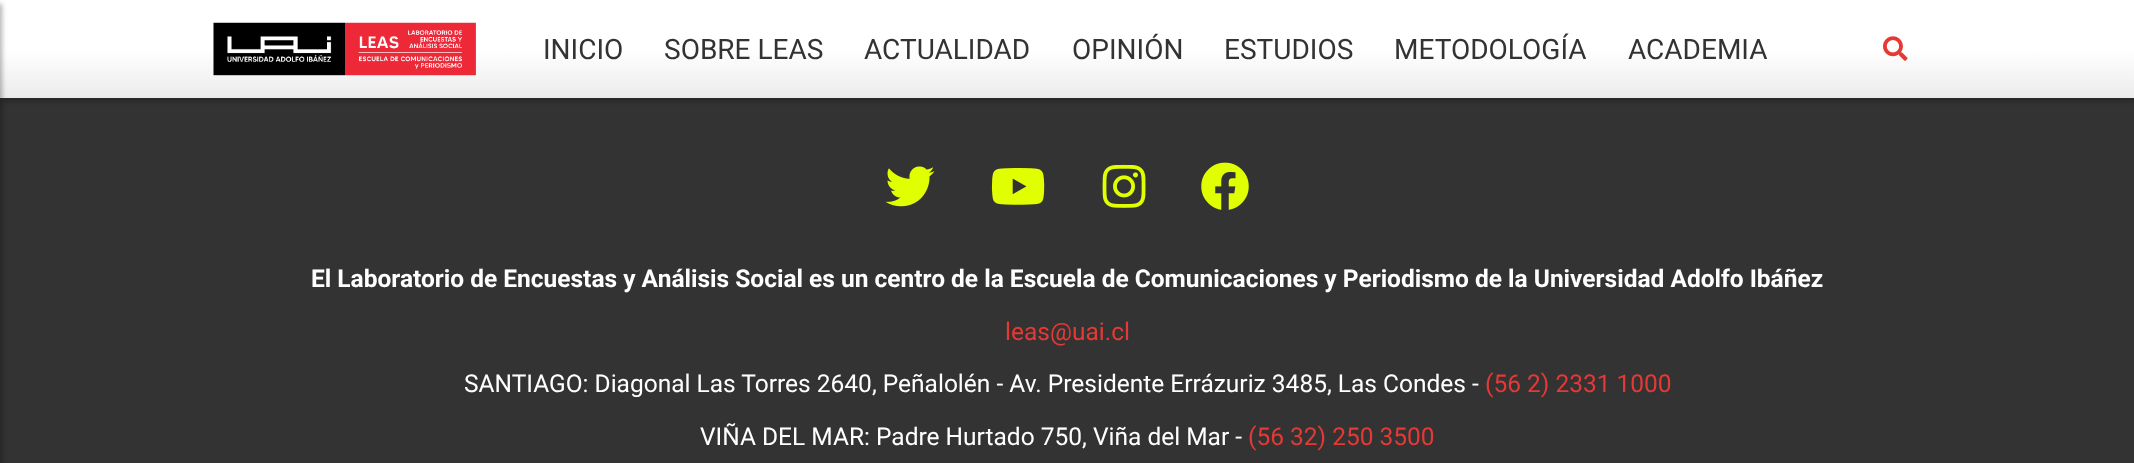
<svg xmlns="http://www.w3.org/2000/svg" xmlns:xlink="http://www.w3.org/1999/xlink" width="2134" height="463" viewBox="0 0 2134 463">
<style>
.cls-1{font:28px Roboto;fill:#333333}
.cls-2{font:bold 24.5px Roboto;fill:#ffffff}
.cls-3{font:24.5px Roboto;fill:#e53935}
.cls-4{font:24.5px Roboto;fill:#ffffff}
</style>
<defs>
<linearGradient id="g1" gradientUnits="userSpaceOnUse" x1="1068" y1="0" x2="1068" y2="98"><stop offset="0" stop-color="#ffffff"/><stop offset="0.5" stop-color="#ffffff"/><stop offset="1" stop-color="#ececec"/></linearGradient>
</defs>
<rect width="100%" height="100%" fill="#333333"/>
<rect fill="#000000" fill-opacity="0.2" filter="blur(2.5px)" x="2" y="4" width="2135" height="98"/>
<rect fill="url(#g1)" x="0" y="0" width="2134" height="98"/>
<rect fill="#000000" fill-opacity="0.3" filter="blur(2.5px)" x="-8" y="4" width="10" height="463"/>
<image xlink:href="image0.png" x="213" y="22" width="263" height="54"/>
<image xlink:href="image1.png" x="1883" y="36" width="25" height="25"/>
<image xlink:href="image2.png" x="885" y="166" width="50" height="41"/>
<image xlink:href="image3.png" x="991" y="168" width="54" height="37"/>
<image xlink:href="image4.png" x="1102" y="164" width="44" height="44"/>
<image xlink:href="image5.png" x="1201" y="162" width="48" height="48"/>
<text class="cls-1" x="543" y="59">INICIO</text>
<text class="cls-1" x="664" y="59">SOBRE LEAS</text>
<text class="cls-1" x="864" y="59">ACTUALIDAD</text>
<text class="cls-1" x="1072" y="59">OPINIÓN</text>
<text class="cls-1" x="1224" y="59">ESTUDIOS</text>
<text class="cls-1" x="1394" y="59">METODOLOGÍA</text>
<text class="cls-1" x="1628" y="59">ACADEMIA</text>
<text class="cls-2" x="311" y="287">El Laboratorio de Encuestas y Análisis Social es un centro de la Escuela de Comunicaciones y Periodismo de la Universidad Adolfo Ibáñez</text>
<text class="cls-3" x="1005" y="340">leas@uai.cl</text>
<text class="cls-4" x="464" y="392">SANTIAGO: Diagonal Las Torres 2640, Peñalolén - Av. Presidente Errázuriz 3485, Las Condes -</text>
<text class="cls-3" x="1485" y="392">(56 2) 2331 1000</text>
<text class="cls-4" x="700" y="445">VIÑA DEL MAR: Padre Hurtado 750, Viña del Mar -</text>
<text class="cls-3" x="1248" y="445">(56 32) 250 3500</text>
</svg>
